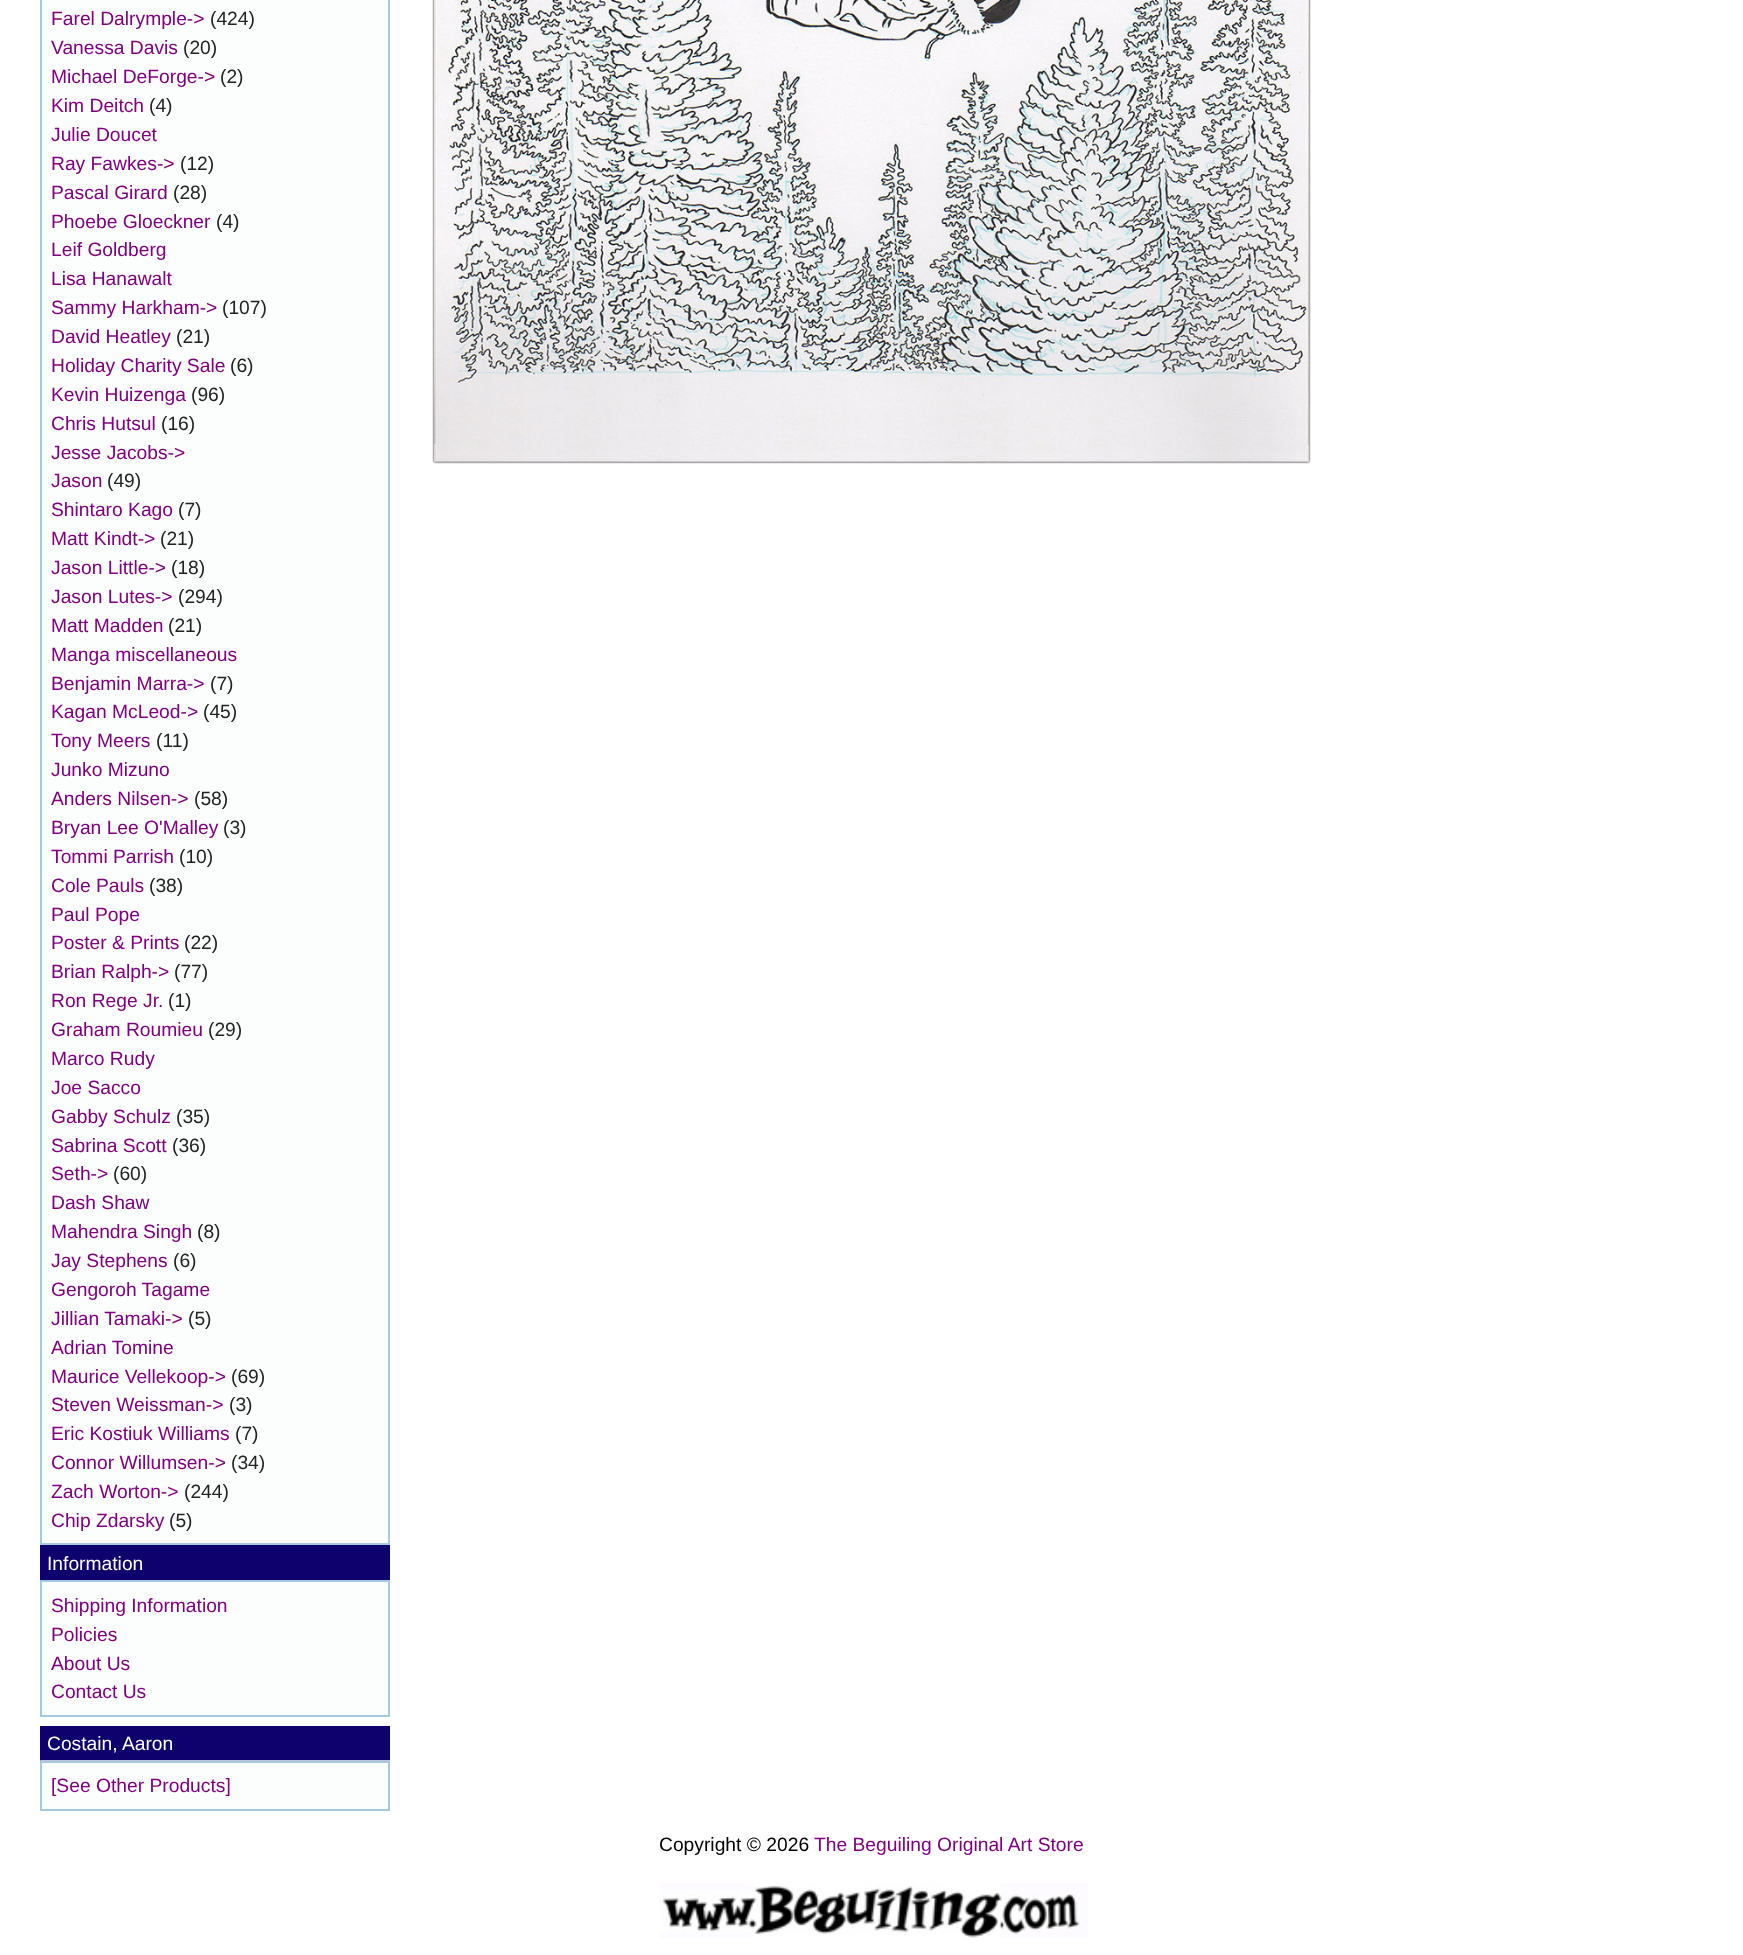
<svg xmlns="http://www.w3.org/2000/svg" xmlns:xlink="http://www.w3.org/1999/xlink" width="1743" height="1955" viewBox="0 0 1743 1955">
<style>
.cls-1{font:19.25px Liberation Sans;fill:#800080}
.cls-2{font:19.25px Liberation Sans;fill:#222222}
.cls-3{font:19.25px Liberation Sans;fill:#ffffff}
.cls-4{font:19.25px Liberation Sans;fill:#000000}
</style>
<rect width="100%" height="100%" fill="#ffffff"/>
<rect fill="#fcfdfd" stroke="#a6c9e2" stroke-width="2" x="41" y="-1" width="348" height="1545"/>
<rect fill="#0e006d" x="40" y="1545" width="350" height="35"/>
<rect fill="#fcfdfd" stroke="#a6c9e2" stroke-width="2" x="41" y="1581" width="348" height="135"/>
<rect fill="#000000" filter="blur(1px)" x="434" y="-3" width="875" height="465"/>
<image xlink:href="image0.png" x="434" y="0" width="875" height="462"/>
<rect fill="#0e006d" x="40" y="1726" width="350" height="35"/>
<rect fill="#fcfdfd" stroke="#a6c9e2" stroke-width="2" x="41" y="1762" width="348" height="48"/>
<image xlink:href="image1.png" x="40" y="1760" width="350" height="1"/>
<image xlink:href="image2.png" x="659" y="1883" width="429" height="55"/>
<text class="cls-1" x="51" y="25">Farel Dalrymple-&gt;</text>
<text class="cls-2" x="210" y="25">(424)</text>
<text class="cls-1" x="51" y="54">Vanessa Davis</text>
<text class="cls-2" x="183" y="54">(20)</text>
<text class="cls-1" x="51" y="83">Michael DeForge-&gt;</text>
<text class="cls-2" x="220" y="83">(2)</text>
<text class="cls-1" x="51" y="112">Kim Deitch</text>
<text class="cls-2" x="149" y="112">(4)</text>
<text class="cls-1"><tspan x="51" y="141">Julie Doucet</tspan><tspan x="51" y="170">Ray Fawkes-&gt;</tspan></text>
<text class="cls-2" x="180" y="170">(12)</text>
<text class="cls-1" x="51" y="199">Pascal Girard</text>
<text class="cls-2" x="173" y="199">(28)</text>
<text class="cls-1" x="51" y="228">Phoebe Gloeckner</text>
<text class="cls-2" x="216" y="228">(4)</text>
<text class="cls-1"><tspan x="51" y="256">Leif Goldberg</tspan><tspan x="51" y="285">Lisa Hanawalt</tspan><tspan x="51" y="314">Sammy Harkham-&gt;</tspan></text>
<text class="cls-2" x="222" y="314">(107)</text>
<text class="cls-1" x="51" y="343">David Heatley</text>
<text class="cls-2" x="176" y="343">(21)</text>
<text class="cls-1" x="51" y="372">Holiday Charity Sale</text>
<text class="cls-2" x="230" y="372">(6)</text>
<text class="cls-1" x="51" y="401">Kevin Huizenga</text>
<text class="cls-2" x="191" y="401">(96)</text>
<text class="cls-1" x="51" y="430">Chris Hutsul</text>
<text class="cls-2" x="161" y="430">(16)</text>
<text class="cls-1"><tspan x="51" y="459">Jesse Jacobs-&gt;</tspan><tspan x="51" y="487">Jason</tspan></text>
<text class="cls-2" x="107" y="487">(49)</text>
<text class="cls-1" x="51" y="516">Shintaro Kago</text>
<text class="cls-2" x="178" y="516">(7)</text>
<text class="cls-1" x="51" y="545">Matt Kindt-&gt;</text>
<text class="cls-2" x="160" y="545">(21)</text>
<text class="cls-1" x="51" y="574">Jason Little-&gt;</text>
<text class="cls-2" x="171" y="574">(18)</text>
<text class="cls-1" x="51" y="603">Jason Lutes-&gt;</text>
<text class="cls-2" x="178" y="603">(294)</text>
<text class="cls-1" x="51" y="632">Matt Madden</text>
<text class="cls-2" x="168" y="632">(21)</text>
<text class="cls-1"><tspan x="51" y="661">Manga miscellaneous</tspan><tspan x="51" y="690">Benjamin Marra-&gt;</tspan></text>
<text class="cls-2" x="210" y="690">(7)</text>
<text class="cls-1" x="51" y="718">Kagan McLeod-&gt;</text>
<text class="cls-2" x="203" y="718">(45)</text>
<text class="cls-1" x="51" y="747">Tony Meers</text>
<text class="cls-2" x="156" y="747">(11)</text>
<text class="cls-1"><tspan x="51" y="776">Junko Mizuno</tspan><tspan x="51" y="805">Anders Nilsen-&gt;</tspan></text>
<text class="cls-2" x="194" y="805">(58)</text>
<text class="cls-1" x="51" y="834">Bryan Lee O'Malley</text>
<text class="cls-2" x="223" y="834">(3)</text>
<text class="cls-1" x="51" y="863">Tommi Parrish</text>
<text class="cls-2" x="179" y="863">(10)</text>
<text class="cls-1" x="51" y="892">Cole Pauls</text>
<text class="cls-2" x="149" y="892">(38)</text>
<text class="cls-1"><tspan x="51" y="921">Paul Pope</tspan><tspan x="51" y="949">Poster &amp; Prints</tspan></text>
<text class="cls-2" x="184" y="949">(22)</text>
<text class="cls-1" x="51" y="978">Brian Ralph-&gt;</text>
<text class="cls-2" x="174" y="978">(77)</text>
<text class="cls-1" x="51" y="1007">Ron Rege Jr.</text>
<text class="cls-2" x="168" y="1007">(1)</text>
<text class="cls-1" x="51" y="1036">Graham Roumieu</text>
<text class="cls-2" x="208" y="1036">(29)</text>
<text class="cls-1"><tspan x="51" y="1065">Marco Rudy</tspan><tspan x="51" y="1094">Joe Sacco</tspan><tspan x="51" y="1123">Gabby Schulz</tspan></text>
<text class="cls-2" x="176" y="1123">(35)</text>
<text class="cls-1" x="51" y="1152">Sabrina Scott</text>
<text class="cls-2" x="172" y="1152">(36)</text>
<text class="cls-1" x="51" y="1180">Seth-&gt;</text>
<text class="cls-2" x="113" y="1180">(60)</text>
<text class="cls-1"><tspan x="51" y="1209">Dash Shaw</tspan><tspan x="51" y="1238">Mahendra Singh</tspan></text>
<text class="cls-2" x="197" y="1238">(8)</text>
<text class="cls-1" x="51" y="1267">Jay Stephens</text>
<text class="cls-2" x="173" y="1267">(6)</text>
<text class="cls-1"><tspan x="51" y="1296">Gengoroh Tagame</tspan><tspan x="51" y="1325">Jillian Tamaki-&gt;</tspan></text>
<text class="cls-2" x="188" y="1325">(5)</text>
<text class="cls-1"><tspan x="51" y="1354">Adrian Tomine</tspan><tspan x="51" y="1383">Maurice Vellekoop-&gt;</tspan></text>
<text class="cls-2" x="231" y="1383">(69)</text>
<text class="cls-1" x="51" y="1411">Steven Weissman-&gt;</text>
<text class="cls-2" x="229" y="1411">(3)</text>
<text class="cls-1" x="51" y="1440">Eric Kostiuk Williams</text>
<text class="cls-2" x="235" y="1440">(7)</text>
<text class="cls-1" x="51" y="1469">Connor Willumsen-&gt;</text>
<text class="cls-2" x="231" y="1469">(34)</text>
<text class="cls-1" x="51" y="1498">Zach Worton-&gt;</text>
<text class="cls-2" x="184" y="1498">(244)</text>
<text class="cls-1" x="51" y="1527">Chip Zdarsky</text>
<text class="cls-2" x="169" y="1527">(5)</text>
<text class="cls-3" x="47" y="1570">Information</text>
<text class="cls-1"><tspan x="51" y="1612">Shipping Information</tspan><tspan x="51" y="1641">Policies</tspan><tspan x="51" y="1670">About Us</tspan><tspan x="51" y="1698">Contact Us</tspan></text>
<text class="cls-3" x="47" y="1750">Costain, Aaron</text>
<text class="cls-1" x="51" y="1792">[See Other Products]</text>
<text class="cls-4" x="659" y="1851">Copyright © 2026</text>
<text class="cls-1" x="814" y="1851">The Beguiling Original Art Store</text>
</svg>
